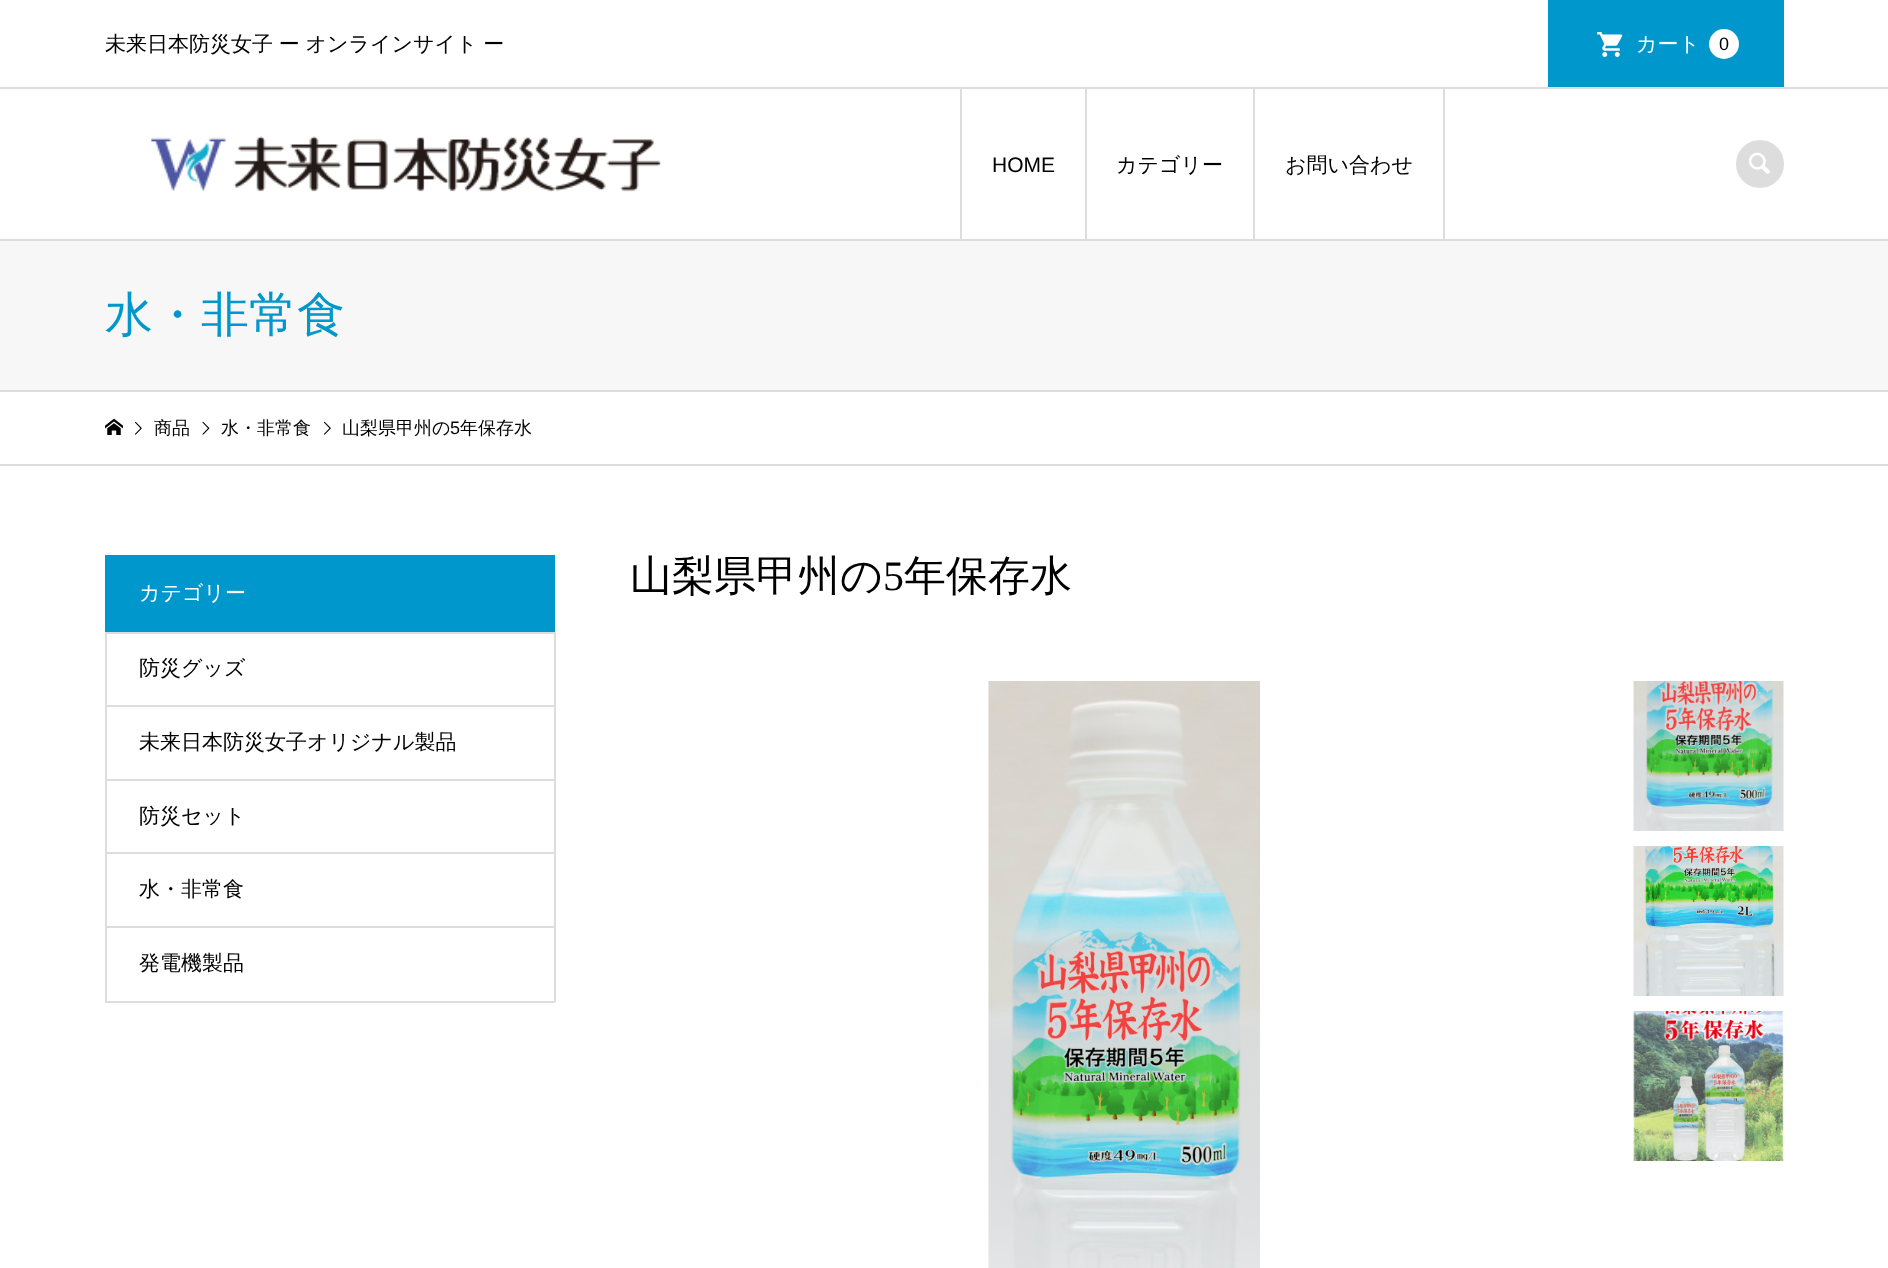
<svg xmlns="http://www.w3.org/2000/svg" xmlns:xlink="http://www.w3.org/1999/xlink" width="1888" height="1268" viewBox="0 0 1888 1268">
<style>
.cls-1{font:500 21px WenQuanYi Zen Hei;fill:#000000}
.cls-2{font:500 21px WenQuanYi Zen Hei;fill:#ffffff}
.cls-3{font:18px Liberation Sans;fill:#000000}
.cls-4{font:21px Liberation Sans;fill:#000000}
.cls-5{font:500 48px WenQuanYi Zen Hei;fill:#0097cc}
.cls-6{font:500 18px WenQuanYi Zen Hei;fill:#000000}
.cls-7{font:500 42px WenQuanYi Zen Hei;fill:#000000}
.cls-8{font:42px Liberation Serif;fill:#000000}
</style>
<rect width="100%" height="100%" fill="#ffffff"/>
<rect fill="#dddddd" x="0" y="87" width="1888" height="2"/>
<rect fill="#0097cc" x="1548" y="0" width="236" height="87"/>
<image xlink:href="image0.png" x="1597" y="32" width="26" height="25"/>
<circle fill="#ffffff" cx="1724" cy="44" r="15"/>
<rect fill="#dddddd" x="0" y="239" width="1888" height="2"/>
<image xlink:href="image1.png" x="151" y="136" width="510" height="56"/>
<rect fill="#dddddd" x="960" y="89" width="2" height="150"/>
<rect fill="#dddddd" x="1085" y="89" width="2" height="151"/>
<rect fill="#dddddd" x="1253" y="89" width="2" height="151"/>
<rect fill="#dddddd" x="1443" y="89" width="2" height="151"/>
<circle fill="#dddddd" cx="1760" cy="164" r="24"/>
<image xlink:href="image2.png" x="1749" y="152" width="21" height="22"/>
<rect fill="#f7f7f7" x="0" y="241" width="1888" height="149"/>
<rect fill="#dddddd" x="0" y="390" width="1888" height="2"/>
<rect fill="#dddddd" x="0" y="464" width="1888" height="2"/>
<image xlink:href="image3.png" x="105" y="418" width="18" height="17"/>
<image xlink:href="image4.png" x="135" y="421" width="7" height="14"/>
<image xlink:href="image5.png" x="202" y="421" width="8" height="14"/>
<image xlink:href="image4.png" x="324" y="421" width="7" height="14"/>
<image xlink:href="image6.png" x="988" y="681" width="272" height="587"/>
<image xlink:href="image7.png" x="1633" y="681" width="151" height="150"/>
<image xlink:href="image8.png" x="1633" y="846" width="151" height="150"/>
<image xlink:href="image9.png" x="1633" y="1011" width="151" height="150"/>
<rect fill="#0097cc" x="105" y="555" width="450" height="77"/>
<rect fill="#dddddd" x="554" y="632" width="2" height="370"/>
<rect fill="#dddddd" x="105" y="1001" width="450" height="2"/>
<rect fill="#dddddd" x="105" y="632" width="2" height="370"/>
<rect fill="#dddddd" x="107" y="632" width="447" height="2"/>
<rect fill="#dddddd" x="107" y="705" width="447" height="2"/>
<rect fill="#dddddd" x="107" y="779" width="447" height="2"/>
<rect fill="#dddddd" x="107" y="852" width="447" height="2"/>
<rect fill="#dddddd" x="107" y="926" width="447" height="2"/>
<text class="cls-1" x="105" y="51" word-spacing="-0.5">未来日本防災女子 ー オンラインサイト ー</text>
<text class="cls-2" x="1636" y="51">カート</text>
<text class="cls-3" x="1719" y="50">0</text>
<text class="cls-4" x="992" y="172">HOME</text>
<text class="cls-1" x="1116" y="172">カテゴリー</text>
<text class="cls-1" x="1285" y="172">お問い合わせ</text>
<text class="cls-5" x="105" y="331">水・非常食</text>
<text class="cls-6" x="154" y="434">商品</text>
<text class="cls-6" x="221" y="434">水・非常食</text>
<text class="cls-6" x="342" y="434">山梨県甲州の</text>
<text class="cls-3" x="450" y="434">5</text>
<text class="cls-6" x="460" y="434">年保存水</text>
<text class="cls-7" x="630" y="590">山梨県甲州の</text>
<text class="cls-8" x="883" y="590">5</text>
<text class="cls-7" x="904" y="590">年保存水</text>
<text class="cls-2" x="139" y="600">カテゴリー</text>
<text class="cls-1" x="139" y="675">防災グッズ</text>
<text class="cls-1" x="139" y="749">未来日本防災女子オリジナル製品</text>
<text class="cls-1" x="139" y="823">防災セット</text>
<text class="cls-1" x="139" y="896">水・非常食</text>
<text class="cls-1" x="139" y="970">発電機製品</text>
</svg>
